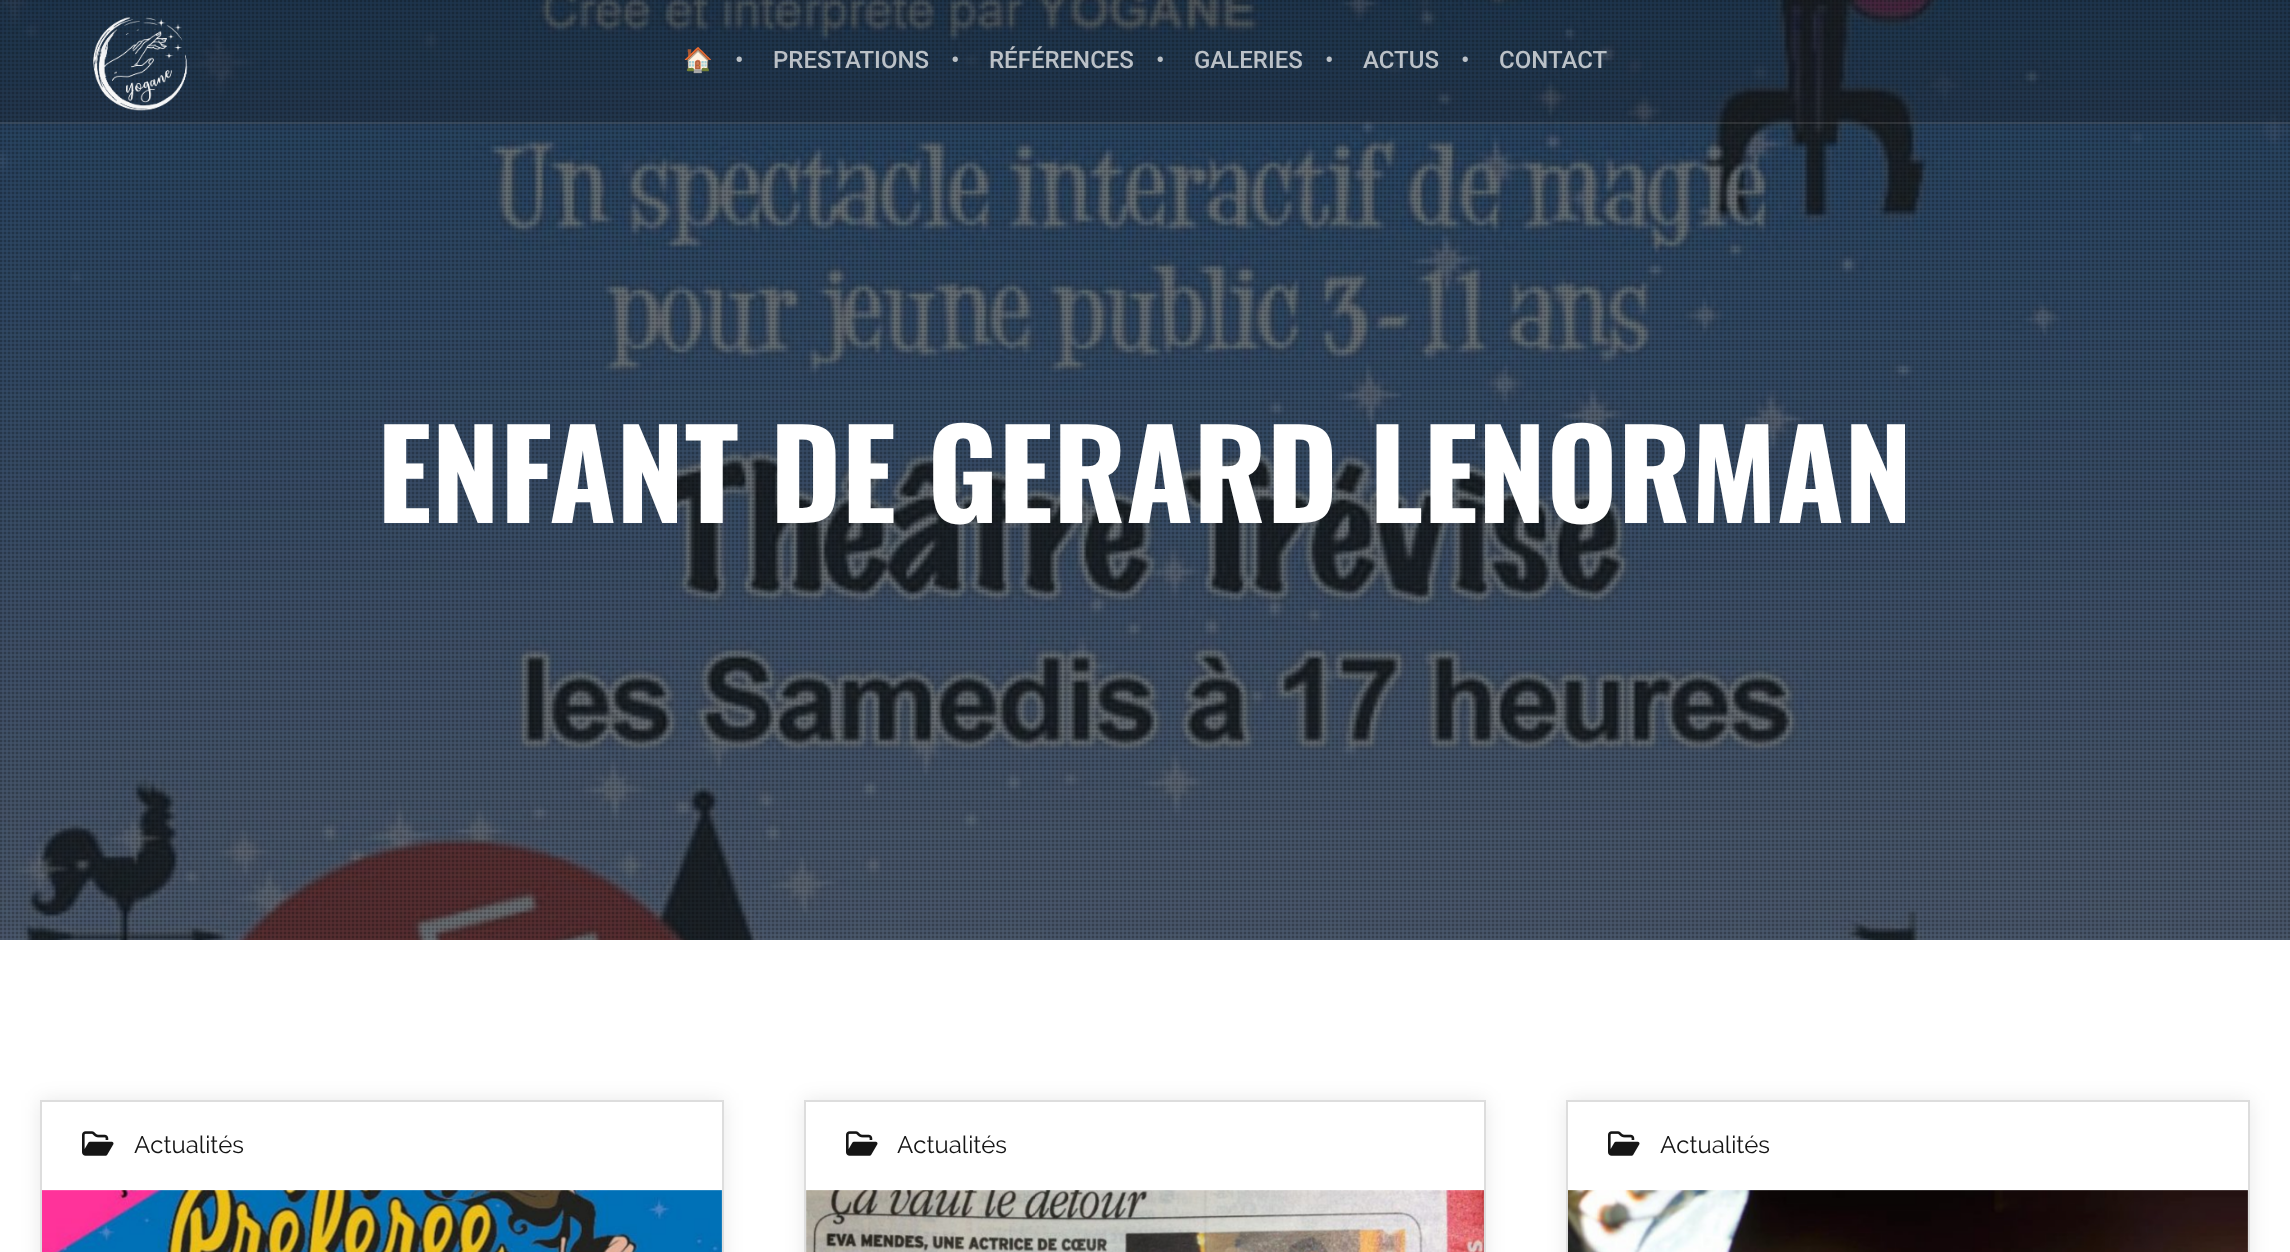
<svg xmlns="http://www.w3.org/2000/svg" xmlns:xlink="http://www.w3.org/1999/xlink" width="2290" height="1252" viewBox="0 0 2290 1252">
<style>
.cls-1{font:24px Noto Color Emoji;fill:#bbc1c7}
.cls-2{font:500 24px Roboto;fill:#bbc1c7}
.cls-3{font:bold 122px Oswald;fill:#ffffff}
.cls-4{font:24px Raleway;fill:#151515}
</style>
<defs>
<clipPath id="clip1"><path d="M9 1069H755V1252H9ZM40 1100H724V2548H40Z" clip-rule="evenodd"/></clipPath>
<clipPath id="clip2"><path d="M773 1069H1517V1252H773ZM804 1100H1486V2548H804Z" clip-rule="evenodd"/></clipPath>
<clipPath id="clip3"><path d="M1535 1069H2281V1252H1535ZM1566 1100H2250V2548H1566Z" clip-rule="evenodd"/></clipPath>
</defs>
<rect width="100%" height="100%" fill="#ffffff"/>
<image xlink:href="image1.png" x="0" y="0" width="2290" height="940"/>
<image xlink:href="image2.png" x="0" y="0" width="2290" height="940"/>
<rect fill="#131416" fill-opacity="0.25" x="0" y="0" width="2290" height="124"/>
<rect fill="#ffffff" fill-opacity="0.1" x="0" y="122" width="2290" height="2"/>
<image xlink:href="image0.png" x="93" y="17" width="95" height="94"/>
<g clip-path="url(#clip1)">
<rect fill="#000000" fill-opacity="0.09" filter="blur(10px)" x="40" y="1100" width="684" height="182"/>
</g>
<rect fill="none" stroke="#dddddd" stroke-width="2" x="41" y="1101" width="682" height="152"/>
<image xlink:href="image3.png" x="82" y="1131" width="32" height="25"/>
<image xlink:href="image4.png" x="42" y="1190" width="680" height="62"/>
<g clip-path="url(#clip2)">
<rect fill="#000000" fill-opacity="0.09" filter="blur(10px)" x="804" y="1100" width="682" height="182"/>
</g>
<rect fill="none" stroke="#dddddd" stroke-width="2" x="805" y="1101" width="680" height="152"/>
<image xlink:href="image3.png" x="846" y="1131" width="32" height="25"/>
<image xlink:href="image5.png" x="806" y="1190" width="678" height="62"/>
<g clip-path="url(#clip3)">
<rect fill="#000000" fill-opacity="0.09" filter="blur(10px)" x="1566" y="1100" width="684" height="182"/>
</g>
<rect fill="none" stroke="#dddddd" stroke-width="2" x="1567" y="1101" width="682" height="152"/>
<image xlink:href="image3.png" x="1608" y="1131" width="32" height="25"/>
<image xlink:href="image6.png" x="1568" y="1190" width="680" height="62"/>
<text class="cls-1" x="683" y="68">🏠</text>
<text class="cls-2" x="735" y="68">•</text>
<text class="cls-2" x="773" y="68">PRESTATIONS</text>
<text class="cls-2" x="951" y="68">•</text>
<text class="cls-2" x="989" y="68">RÉFÉRENCES</text>
<text class="cls-2" x="1156" y="68">•</text>
<text class="cls-2" x="1194" y="68">GALERIES</text>
<text class="cls-2" x="1325" y="68">•</text>
<text class="cls-2" x="1363" y="68">ACTUS</text>
<text class="cls-2" x="1461" y="68">•</text>
<text class="cls-2" x="1499" y="68">CONTACT</text>
<text class="cls-3" x="377" y="523">ENFANT DE GERARD LENORMAN</text>
<text class="cls-4" x="134" y="1153">Actualités</text>
<text class="cls-4" x="897" y="1153">Actualités</text>
<text class="cls-4" x="1660" y="1153">Actualités</text>
</svg>
